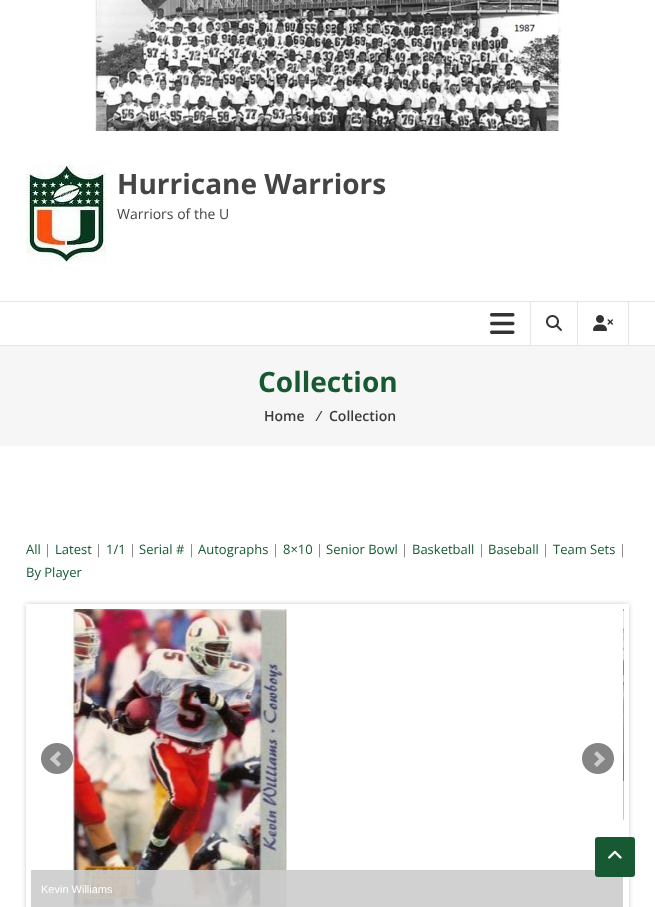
<svg xmlns="http://www.w3.org/2000/svg" xmlns:xlink="http://www.w3.org/1999/xlink" width="655" height="907" viewBox="0 0 655 907">
<style>
.cls-1{font:bold 28px Open Sans;fill:#454545}
.cls-2{font:14px Open Sans;fill:#454545}
.cls-3{font:bold 28px Open Sans;fill:#165933}
.cls-4{font:600 14px Open Sans;fill:#3b3b3b}
.cls-5{font:13px Open Sans;fill:#165933}
.cls-6{font:13px Open Sans;fill:#7f7d7d}
.cls-7{font:11px Liberation Sans;fill:#ffffff}
</style>
<defs>
<clipPath id="clip1"><path d="M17 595H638V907H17ZM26 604H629V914H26Z" clip-rule="evenodd"/></clipPath>
</defs>
<rect width="100%" height="100%" fill="#ffffff"/>
<image xlink:href="image0.png" x="95" y="0" width="466" height="131"/>
<image xlink:href="image1.png" x="26" y="165" width="81" height="99"/>
<rect fill="#e5e5e5" x="0" y="301" width="655" height="1"/>
<rect fill="#e5e5e5" x="0" y="345" width="655" height="1"/>
<image xlink:href="image2.png" x="490" y="313" width="25" height="21"/>
<rect fill="#e5e5e5" x="530" y="302" width="1" height="43"/>
<image xlink:href="image3.png" x="546" y="315" width="16" height="16"/>
<rect fill="#e5e5e5" x="628" y="302" width="1" height="43"/>
<rect fill="#e5e5e5" x="577" y="302" width="1" height="43"/>
<image xlink:href="image4.png" x="593" y="315" width="20" height="16"/>
<rect fill="#f6f6f6" x="0" y="346" width="655" height="100"/>
<g clip-path="url(#clip1)">
<rect fill="#cccccc" filter="blur(2.5px)" x="26" y="604" width="603" height="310"/>
</g>
<image xlink:href="image8.png" x="64" y="609" width="224" height="298"/>
<image xlink:href="image5.png" x="41" y="743" width="32" height="31"/>
<image xlink:href="image6.png" x="582" y="743" width="32" height="31"/>
<image xlink:href="image7.png" x="623" y="609" width="1" height="211"/>
<rect fill="#cccccc" fill-opacity="0.9" x="623" y="781" width="1" height="39"/>
<rect fill="#cccccc" fill-opacity="0.9" x="31" y="870" width="592" height="37"/>
<rect fill="#165933" x="595" y="837" width="40" height="40" rx="3"/>
<image xlink:href="image9.png" x="608" y="850" width="14" height="9"/>
<text class="cls-1" x="117" y="194">Hurricane Warriors</text>
<text class="cls-2" x="117" y="219">Warriors of the U</text>
<text class="cls-3" x="258" y="392">Collection</text>
<text class="cls-4" x="264" y="421">Home</text>
<text class="cls-4" x="318" y="421">⁄</text>
<text class="cls-4" x="329" y="421">Collection</text>
<text class="cls-5" x="26" y="554">All</text>
<text class="cls-6" x="44" y="554">|</text>
<text class="cls-5" x="55" y="554">Latest</text>
<text class="cls-6" x="95" y="554">|</text>
<text class="cls-5" x="106" y="554">1/1</text>
<text class="cls-6" x="129" y="554">|</text>
<text class="cls-5" x="139" y="554">Serial #</text>
<text class="cls-6" x="188" y="554">|</text>
<text class="cls-5" x="198" y="554">Autographs</text>
<text class="cls-6" x="272" y="554">|</text>
<text class="cls-5" x="283" y="554">8×10</text>
<text class="cls-6" x="316" y="554">|</text>
<text class="cls-5" x="326" y="554">Senior Bowl</text>
<text class="cls-6" x="401" y="554">|</text>
<text class="cls-5" x="412" y="554">Basketball</text>
<text class="cls-6" x="478" y="554">|</text>
<text class="cls-5" x="488" y="554">Baseball</text>
<text class="cls-6" x="542" y="554">|</text>
<text class="cls-5" x="553" y="554">Team Sets</text>
<text class="cls-6" x="619" y="554">|</text>
<text class="cls-5" x="26" y="577">By Player</text>
<text class="cls-7" x="41" y="893">Kevin Williams</text>
</svg>
